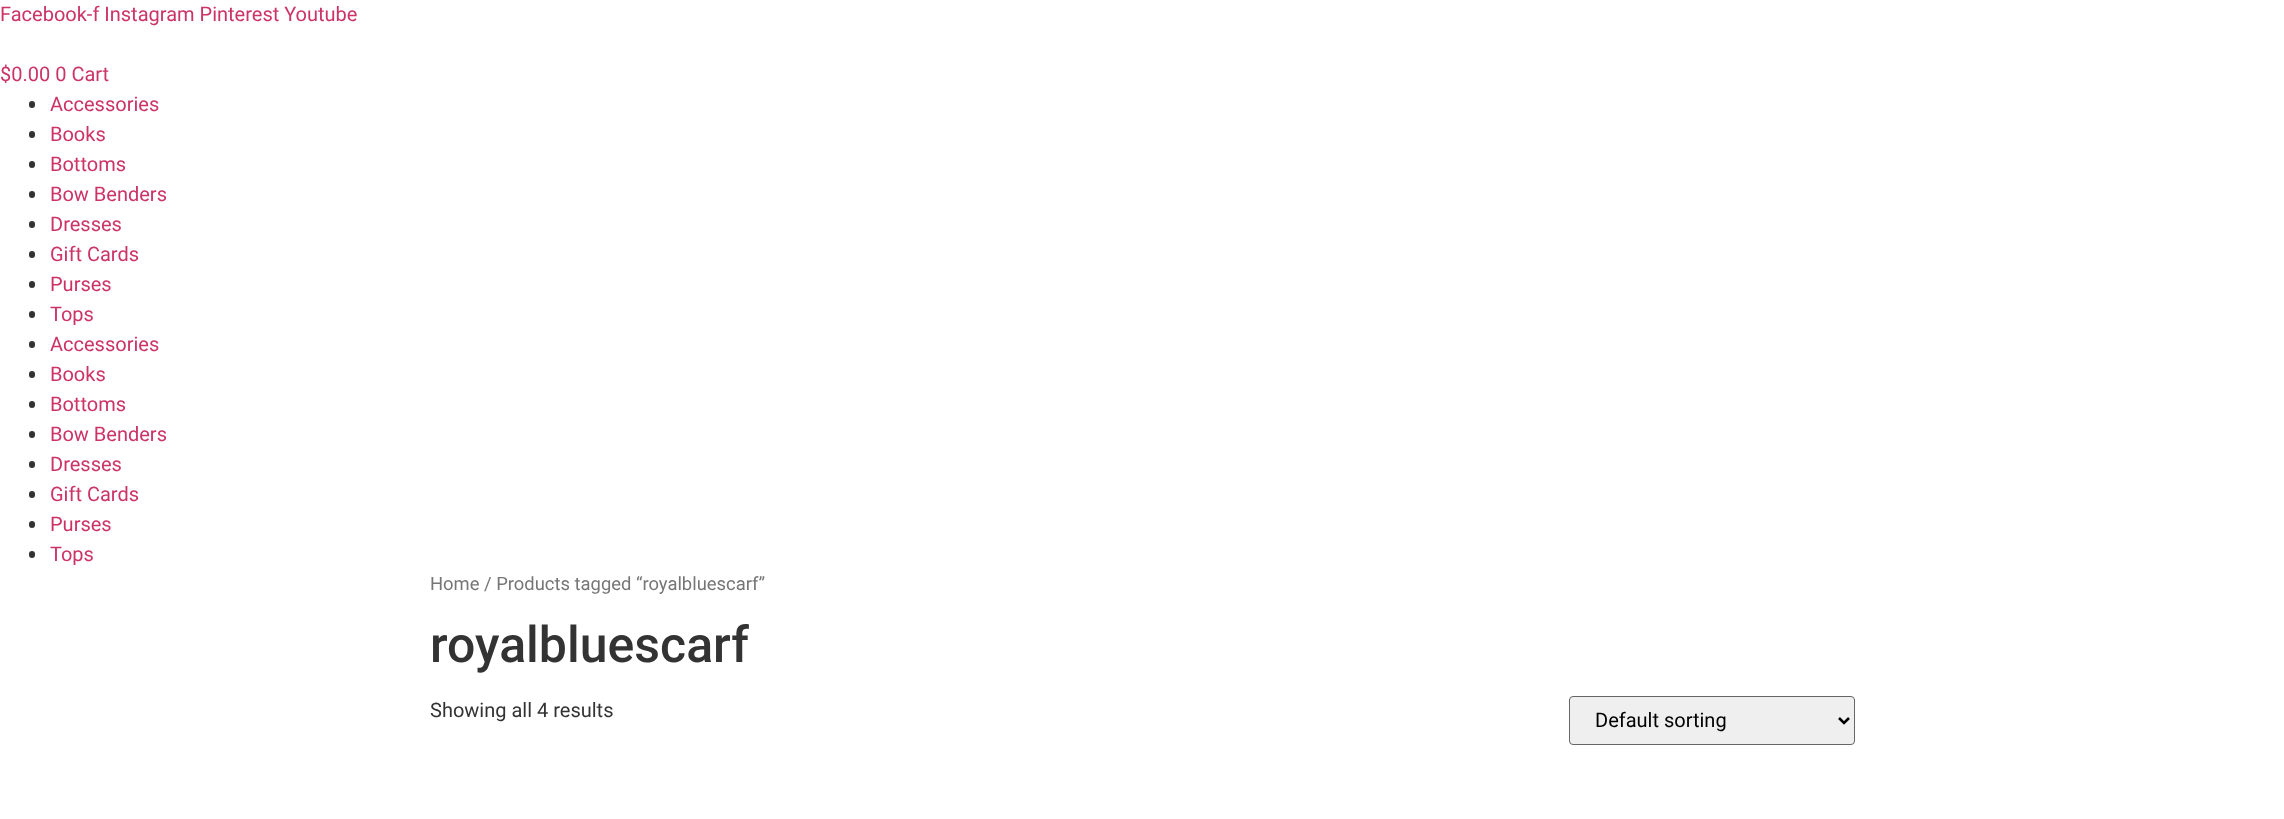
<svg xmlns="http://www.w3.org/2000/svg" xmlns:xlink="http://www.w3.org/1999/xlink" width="2284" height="819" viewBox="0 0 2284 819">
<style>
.cls-1{font:20px Roboto;fill:#cc3366}
.cls-2{font:18.4px Roboto;fill:#767676}
.cls-3{font:500 50px Roboto;fill:#333333}
.cls-4{font:20px Roboto;fill:#333333}
.cls-5{font:20px Roboto;fill:#000000}
</style>
<rect width="100%" height="100%" fill="#ffffff"/>
<rect fill="#333333" x="29" y="101" width="6" height="7" rx="3"/>
<rect fill="#333333" x="29" y="131" width="6" height="7" rx="3"/>
<rect fill="#333333" x="29" y="161" width="6" height="7" rx="3"/>
<rect fill="#333333" x="29" y="191" width="6" height="7" rx="3"/>
<rect fill="#333333" x="29" y="221" width="6" height="7" rx="3"/>
<rect fill="#333333" x="29" y="251" width="6" height="7" rx="3"/>
<rect fill="#333333" x="29" y="281" width="6" height="7" rx="3"/>
<rect fill="#333333" x="29" y="311" width="6" height="7" rx="3"/>
<rect fill="#333333" x="29" y="341" width="6" height="7" rx="3"/>
<rect fill="#333333" x="29" y="371" width="6" height="7" rx="3"/>
<rect fill="#333333" x="29" y="401" width="6" height="7" rx="3"/>
<rect fill="#333333" x="29" y="431" width="6" height="7" rx="3"/>
<rect fill="#333333" x="29" y="461" width="6" height="7" rx="3"/>
<rect fill="#333333" x="29" y="491" width="6" height="7" rx="3"/>
<rect fill="#333333" x="29" y="521" width="6" height="7" rx="3"/>
<rect fill="#333333" x="29" y="551" width="6" height="7" rx="3"/>
<rect fill="#efefef" stroke="#666666" x="1569.5" y="696.5" width="285" height="48" rx="3.5"/>
<path fill="none" stroke="#000000" stroke-width="2.5" d="M1839 718L1844 723L1849 718"/>
<text class="cls-1" x="0" y="21">Facebook-f Instagram Pinterest Youtube</text>
<text class="cls-1" x="0" y="81">$0.00 0 Cart</text>
<text class="cls-1"><tspan x="50" y="111">Accessories</tspan><tspan x="50" y="141">Books</tspan><tspan x="50" y="171">Bottoms</tspan><tspan x="50" y="201">Bow Benders</tspan><tspan x="50" y="231">Dresses</tspan><tspan x="50" y="261">Gift Cards</tspan><tspan x="50" y="291">Purses</tspan><tspan x="50" y="321">Tops</tspan><tspan x="50" y="351">Accessories</tspan><tspan x="50" y="381">Books</tspan><tspan x="50" y="411">Bottoms</tspan><tspan x="50" y="441">Bow Benders</tspan><tspan x="50" y="471">Dresses</tspan><tspan x="50" y="501">Gift Cards</tspan><tspan x="50" y="531">Purses</tspan><tspan x="50" y="561">Tops</tspan></text>
<text class="cls-2" x="430" y="590">Home / Products tagged “royalbluescarf”</text>
<text class="cls-3" x="430" y="662">royalbluescarf</text>
<text class="cls-4" x="430" y="717">Showing all 4 results</text>
<text class="cls-5" x="1595" y="727">Default sorting</text>
</svg>
